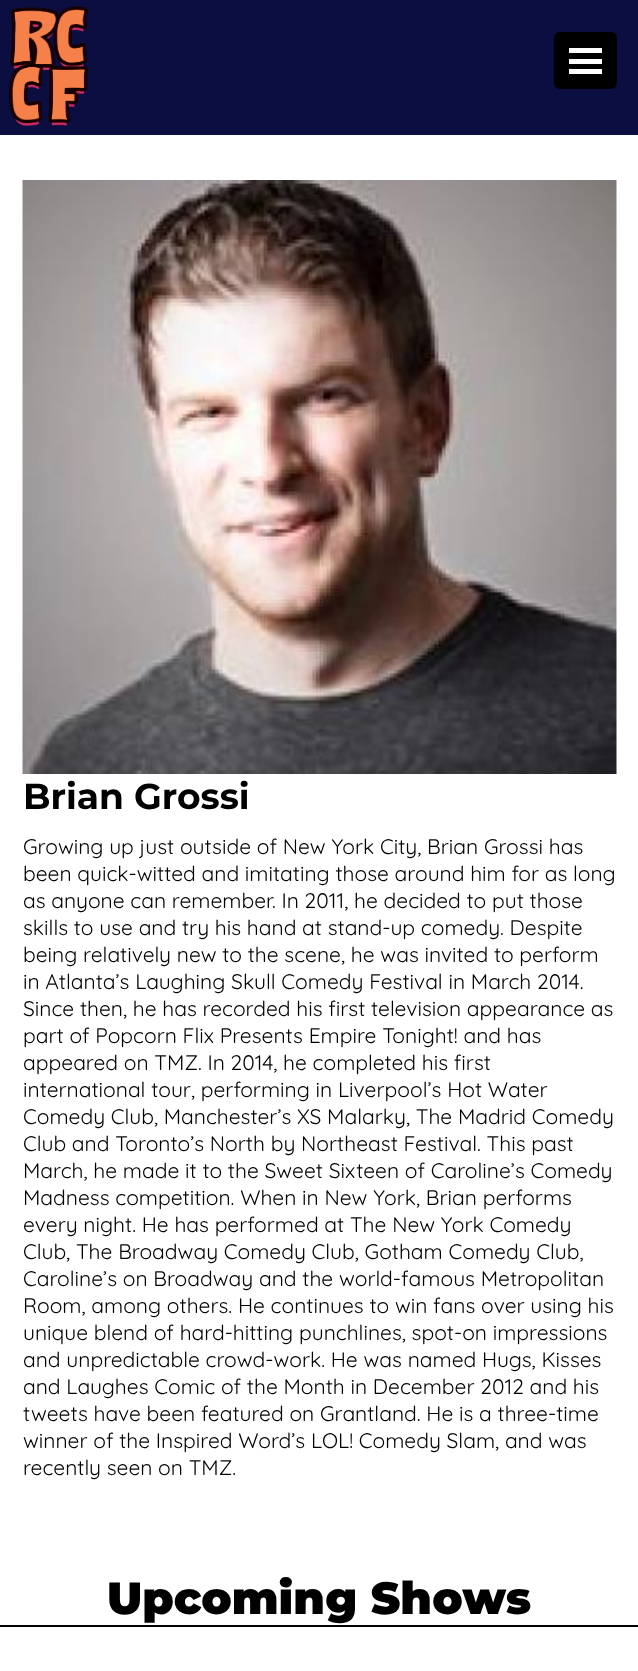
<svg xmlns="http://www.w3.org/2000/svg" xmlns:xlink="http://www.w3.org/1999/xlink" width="638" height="1671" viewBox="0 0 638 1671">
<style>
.cls-1{font:bold 36px Montserrat;fill:#000000}
.cls-2{font:21px Quicksand;fill:#000000}
.cls-3{font:900 45px Montserrat;fill:#000000}
</style>
<rect width="100%" height="100%" fill="#ffffff"/>
<rect fill="#0c0d40" x="0" y="0" width="638" height="135"/>
<image xlink:href="image0.png" x="9" y="6" width="80" height="120"/>
<rect fill="#000000" x="554" y="32" width="63" height="57" rx="6"/>
<rect fill="#ffffff" x="569" y="48" width="33" height="5"/>
<rect fill="#ffffff" x="569" y="59" width="33" height="5"/>
<rect fill="#ffffff" x="569" y="69" width="33" height="5"/>
<image xlink:href="image1.png" x="22" y="180" width="595" height="594"/>
<rect fill="#000000" x="0" y="1625" width="638" height="2"/>
<text class="cls-1" x="23" y="809">Brian Grossi</text>
<text class="cls-2"><tspan x="23" y="854">Growing up just outside of New York City, Brian Grossi has</tspan><tspan x="23" y="881">been quick-witted and imitating those around him for as long</tspan><tspan x="23" y="908">as anyone can remember. In 2011, he decided to put those</tspan><tspan x="23" y="935">skills to use and try his hand at stand-up comedy. Despite</tspan><tspan x="23" y="962">being relatively new to the scene, he was invited to perform</tspan><tspan x="23" y="989">in Atlanta’s Laughing Skull Comedy Festival in March 2014.</tspan><tspan x="23" y="1016">Since then, he has recorded his first television appearance as</tspan><tspan x="23" y="1043">part of Popcorn Flix Presents Empire Tonight! and has</tspan><tspan x="23" y="1070">appeared on TMZ. In 2014, he completed his first</tspan><tspan x="23" y="1097">international tour, performing in Liverpool’s Hot Water</tspan><tspan x="23" y="1124">Comedy Club, Manchester’s XS Malarky, The Madrid Comedy</tspan><tspan x="23" y="1151">Club and Toronto’s North by Northeast Festival. This past</tspan><tspan x="23" y="1178">March, he made it to the Sweet Sixteen of Caroline’s Comedy</tspan><tspan x="23" y="1205">Madness competition. When in New York, Brian performs</tspan><tspan x="23" y="1232">every night. He has performed at The New York Comedy</tspan><tspan x="23" y="1259">Club, The Broadway Comedy Club, Gotham Comedy Club,</tspan><tspan x="23" y="1286">Caroline’s on Broadway and the world-famous Metropolitan</tspan><tspan x="23" y="1313">Room, among others. He continues to win fans over using his</tspan><tspan x="23" y="1340">unique blend of hard-hitting punchlines, spot-on impressions</tspan><tspan x="23" y="1367">and unpredictable crowd-work. He was named Hugs, Kisses</tspan><tspan x="23" y="1394">and Laughes Comic of the Month in December 2012 and his</tspan><tspan x="23" y="1421">tweets have been featured on Grantland. He is a three-time</tspan><tspan x="23" y="1448">winner of the Inspired Word’s LOL! Comedy Slam, and was</tspan><tspan x="23" y="1475">recently seen on TMZ.</tspan></text>
<text class="cls-3" x="107" y="1614">Upcoming Shows</text>
</svg>
